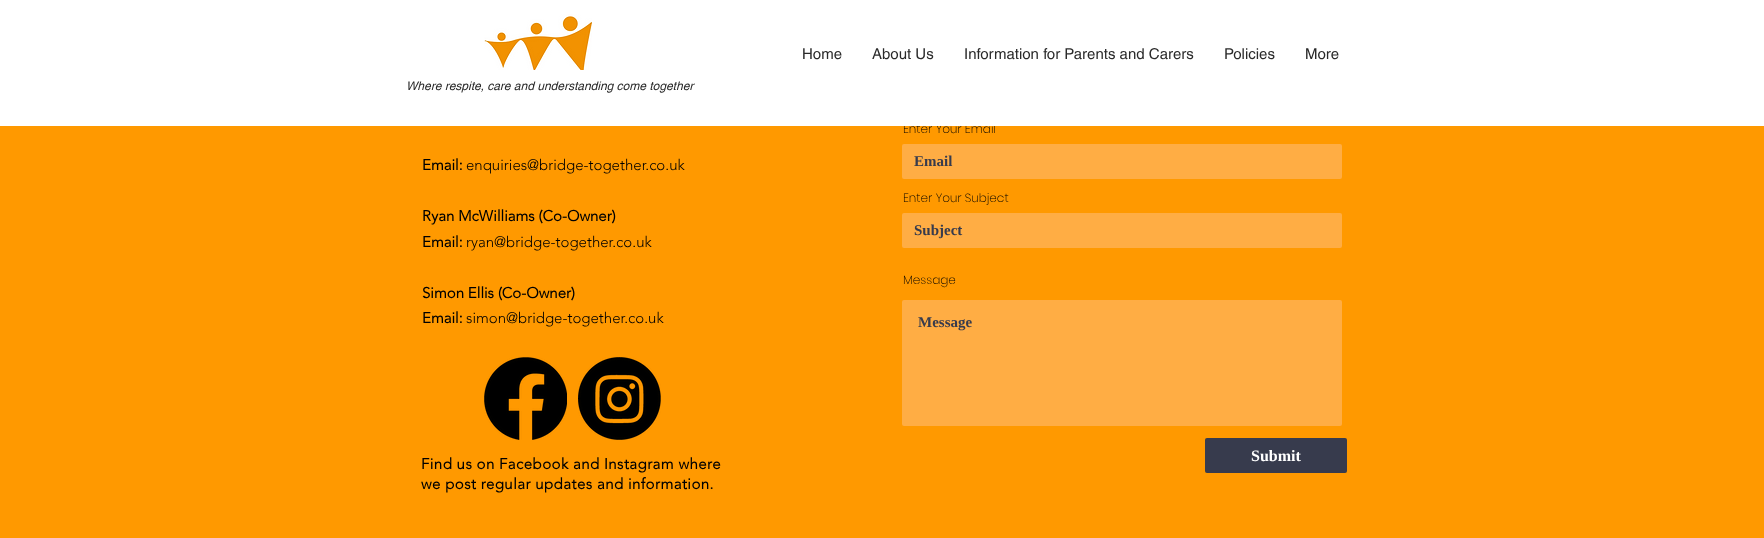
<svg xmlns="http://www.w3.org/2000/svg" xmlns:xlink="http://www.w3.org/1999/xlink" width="1764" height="538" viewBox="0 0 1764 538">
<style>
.cls-1{font:bold 15px 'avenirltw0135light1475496';fill:#000000}
.cls-2{font:300 15px 'avenirltw0135light1475496';fill:#000000}
.cls-3{font:200 12px Poppins;fill:#000000}
.cls-4{font:italic 12px helvetica;fill:#2a2a2a}
.cls-5{font:15px helvetica;fill:#2a2a2a}
.cls-6{font:bold 15px Liberation Serif;fill:#373b4d}
.cls-7{font:bold 16px Liberation Serif;fill:#ffffff}
.cls-8{font:bold 15px 'avenirltw0135light1475496';letter-spacing:0.45px;fill:#000000}
</style>
<rect width="100%" height="100%" fill="#ff9900"/>
<rect fill="#ffad44" x="902" y="144" width="440" height="35" rx="2"/>
<rect fill="#ffad44" x="902" y="213" width="440" height="35" rx="2"/>
<rect fill="#ffad44" x="902" y="300" width="440" height="126" rx="2"/>
<rect fill="#373b4d" x="1205" y="438" width="142" height="35" rx="2"/>
<image xlink:href="image1.png" x="484" y="357" width="83" height="83"/>
<image xlink:href="image2.png" x="578" y="357" width="83" height="83"/>
<text class="cls-1" x="422" y="170">Email:</text>
<text class="cls-2" x="466" y="170">enquiries@bridge-together.co.uk</text>
<text class="cls-1"><tspan x="422" y="221">Ryan McWilliams (Co-Owner)</tspan><tspan x="422" y="247">Email:</tspan></text>
<text class="cls-2" x="466" y="247">ryan@bridge-together.co.uk</text>
<text class="cls-1"><tspan x="422" y="298">Simon Ellis (Co-Owner)</tspan><tspan x="422" y="323">Email:</tspan></text>
<text class="cls-2" x="466" y="323">simon@bridge-together.co.uk</text>
<text class="cls-3" x="903" y="133">Enter Your Email</text>
<rect fill="#ffffff" x="0" y="0" width="1764" height="126"/>
<text class="cls-4" x="406" y="90">Where respite, care and understanding come together</text>
<text class="cls-5" x="1305" y="59">More</text>
<text class="cls-5" x="1224" y="59">Policies</text>
<text class="cls-5" x="964" y="59">Information for Parents and Carers</text>
<text class="cls-5" x="872" y="59">About Us</text>
<text class="cls-5" x="802" y="59">Home</text>
<image xlink:href="image0.png" x="484" y="14" width="108" height="56"/>
<text class="cls-6" x="914" y="166">Email</text>
<text class="cls-3" x="903" y="202">Enter Your Subject</text>
<text class="cls-6" x="914" y="235">Subject</text>
<text class="cls-3" x="903" y="284">Message</text>
<text class="cls-6" x="918" y="327">Message</text>
<text class="cls-7" x="1251" y="461">Submit</text>
<text class="cls-8"><tspan x="421" y="469">Find us on Facebook and Instagram where</tspan><tspan x="421" y="489">we post regular updates and information.</tspan></text>
</svg>
